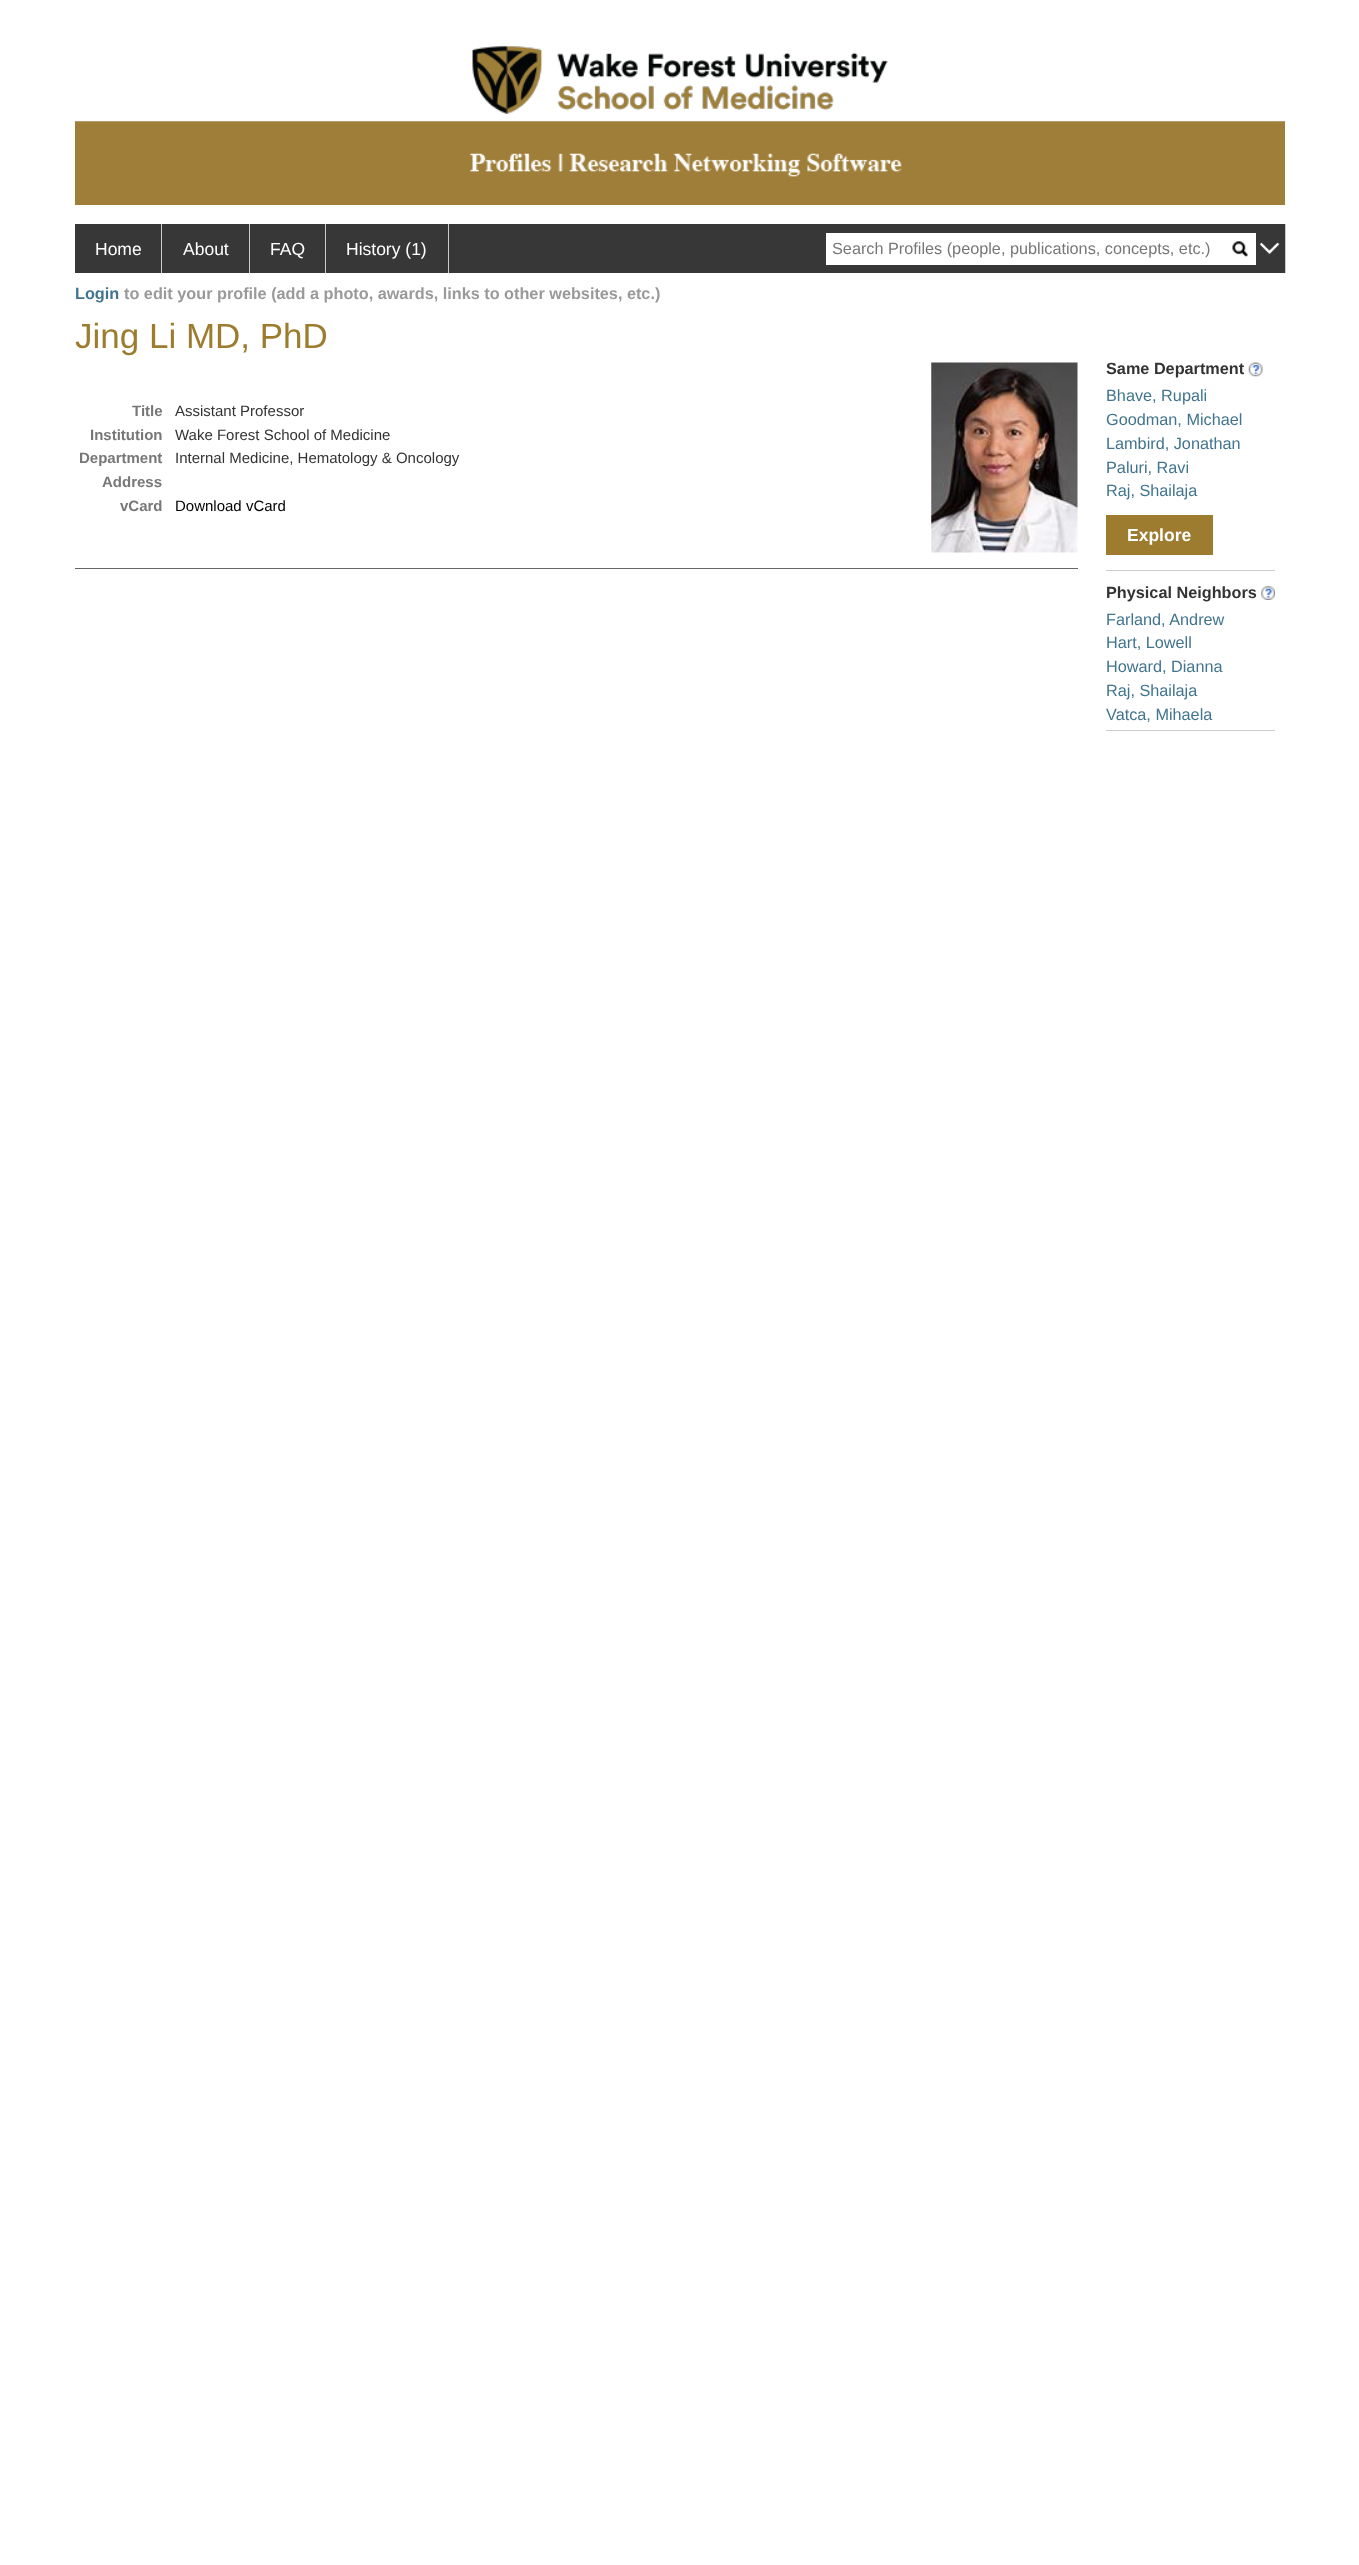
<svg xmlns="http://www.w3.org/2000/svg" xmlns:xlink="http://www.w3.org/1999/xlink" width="1359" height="2565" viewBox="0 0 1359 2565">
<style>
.cls-1{font:17.5px Liberation Sans;fill:#ffffff}
.cls-2{font:16.25px Liberation Sans;fill:#777777}
.cls-3{font:bold 16.25px Liberation Sans;fill:#41748d}
.cls-4{font:bold 16.25px Liberation Sans;fill:#999999}
.cls-5{font:35px Liberation Sans;fill:#9d7c2f}
.cls-6{font:bold 15px Liberation Sans;fill:#777777}
.cls-7{font:15px Liberation Sans;fill:#333333}
.cls-8{font:15px Liberation Sans;fill:#000000}
.cls-9{font:bold 16.25px Liberation Sans;fill:#333333}
.cls-10{font:16.25px Liberation Sans;fill:#41748d}
.cls-11{font:bold 17.5px Liberation Sans;fill:#ffffff}
</style>
<rect width="100%" height="100%" fill="#ffffff"/>
<image xlink:href="image0.png" x="472" y="46" width="416" height="68"/>
<image xlink:href="image1.png" x="75" y="121" width="1210" height="84"/>
<rect fill="#383737" x="75" y="224" width="1210" height="49"/>
<rect fill="#cccccc" x="161" y="224" width="1" height="49"/>
<rect fill="#cccccc" x="249" y="224" width="1" height="49"/>
<rect fill="#cccccc" x="325" y="224" width="1" height="49"/>
<rect fill="#cccccc" x="448" y="224" width="1" height="49"/>
<rect fill="#ffffff" x="826" y="233" width="430" height="32"/>
<image xlink:href="image2.png" x="1232" y="241" width="16" height="16"/>
<rect fill="#cccccc" x="1285" y="224" width="1" height="49"/>
<image xlink:href="image3.png" x="1259" y="242" width="21" height="13"/>
<image xlink:href="image4.png" x="931" y="362" width="147" height="191"/>
<rect fill="#666666" x="75" y="568" width="1003" height="1"/>
<image xlink:href="image5.png" x="1248" y="362" width="15" height="15"/>
<rect fill="#9d7c2f" x="1106" y="515" width="107" height="40"/>
<rect fill="#cccccc" x="1106" y="570" width="169" height="1"/>
<image xlink:href="image6.png" x="1261" y="586" width="14" height="14"/>
<rect fill="#cccccc" x="1106" y="730" width="169" height="1"/>
<text class="cls-1" x="95" y="255">Home</text>
<text class="cls-1" x="183" y="255">About</text>
<text class="cls-1" x="270" y="255">FAQ</text>
<text class="cls-1" x="346" y="255">History (1)</text>
<text class="cls-2" x="832" y="254">Search Profiles (people, publications, concepts, etc.)</text>
<text class="cls-3" x="75" y="299">Login</text>
<text class="cls-4" x="124" y="299">to edit your profile (add a photo, awards, links to other websites, etc.)</text>
<text class="cls-5" x="75" y="348">Jing Li MD, PhD</text>
<text class="cls-6" x="132" y="416">Title</text>
<text class="cls-7" x="175" y="416">Assistant Professor</text>
<text class="cls-6" x="90" y="440">Institution</text>
<text class="cls-7" x="175" y="440">Wake Forest School of Medicine</text>
<text class="cls-6" x="79" y="463">Department</text>
<text class="cls-7" x="175" y="463">Internal Medicine, Hematology &amp; Oncology</text>
<text class="cls-6" x="102" y="487">Address</text>
<text class="cls-6" x="120" y="511">vCard</text>
<text class="cls-8" x="175" y="511">Download vCard</text>
<text class="cls-9" x="1106" y="374">Same Department</text>
<text class="cls-10"><tspan x="1106" y="401">Bhave, Rupali</tspan><tspan x="1106" y="425">Goodman, Michael</tspan><tspan x="1106" y="449">Lambird, Jonathan</tspan><tspan x="1106" y="473">Paluri, Ravi</tspan><tspan x="1106" y="496">Raj, Shailaja</tspan></text>
<text class="cls-11" x="1127" y="541">Explore</text>
<text class="cls-9" x="1106" y="598">Physical Neighbors</text>
<text class="cls-10"><tspan x="1106" y="625">Farland, Andrew</tspan><tspan x="1106" y="648">Hart, Lowell</tspan><tspan x="1106" y="672">Howard, Dianna</tspan><tspan x="1106" y="696">Raj, Shailaja</tspan><tspan x="1106" y="720">Vatca, Mihaela</tspan></text>
</svg>
